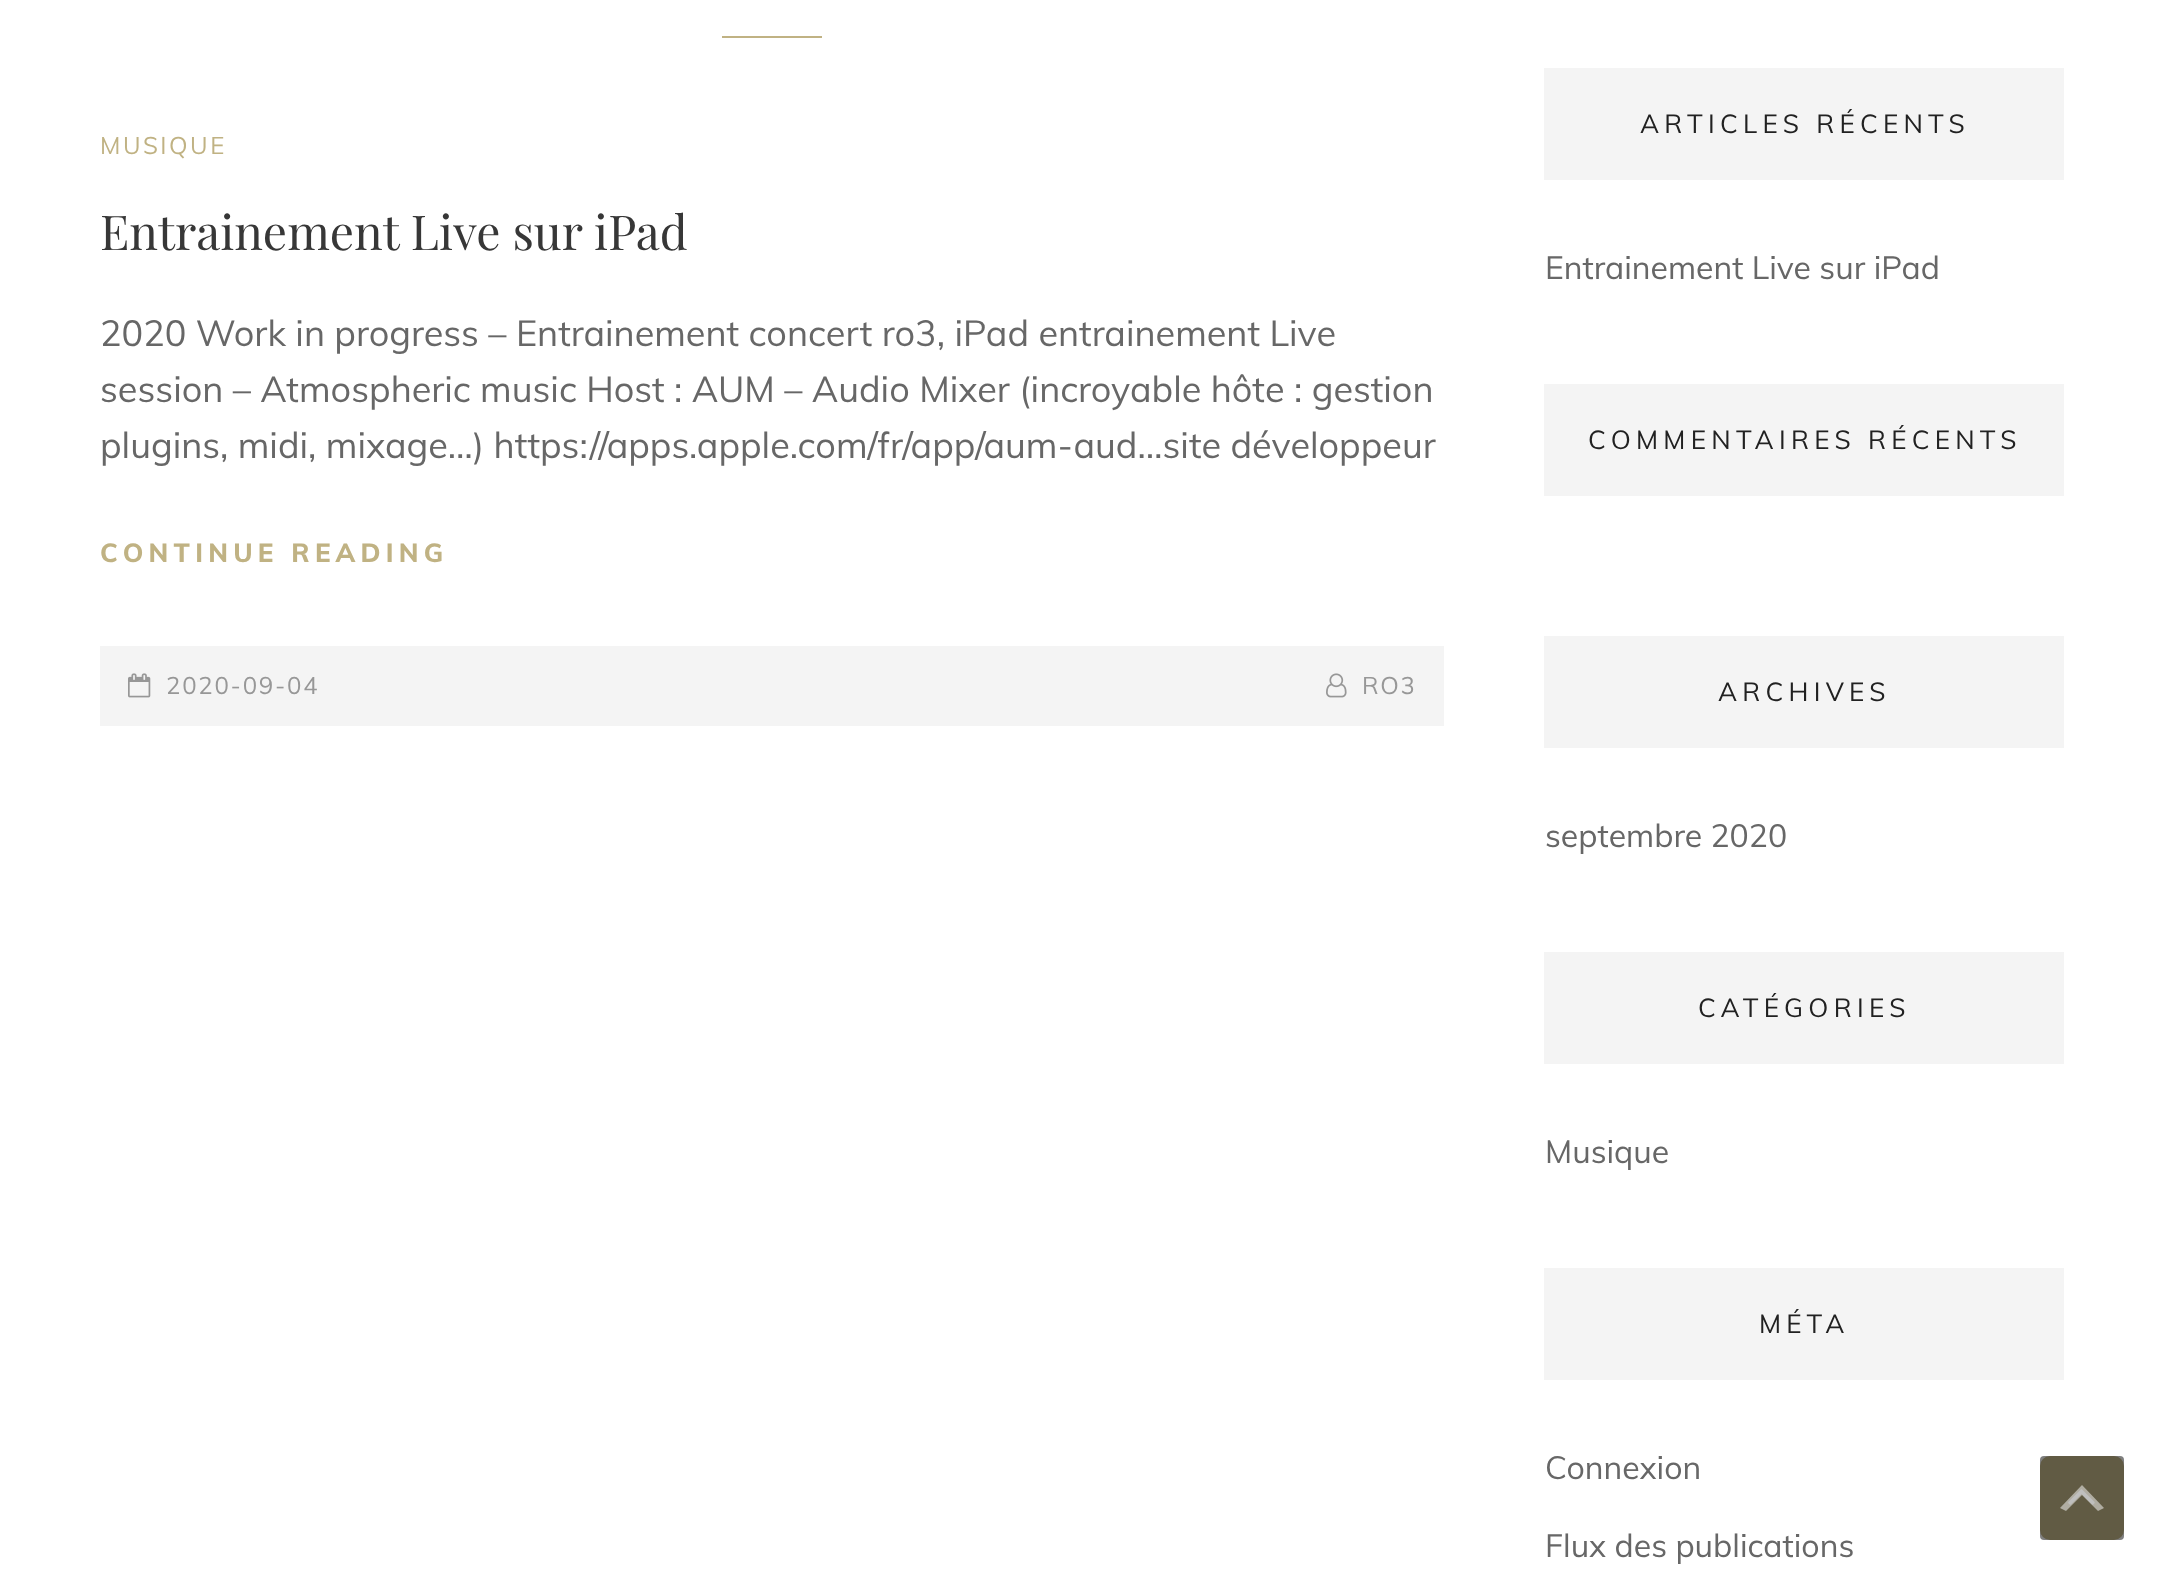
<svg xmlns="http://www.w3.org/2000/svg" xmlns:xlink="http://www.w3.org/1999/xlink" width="2164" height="1579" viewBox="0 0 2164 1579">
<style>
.cls-1{font:24px Muli;letter-spacing:2.5px;fill:#c0b283}
.cls-2{font:48px Playfair Display;fill:#373737}
.cls-3{font:36px Muli;fill:#676767}
.cls-4{font:800 26px Muli;letter-spacing:5.25px;fill:#c0b283}
.cls-5{font:24px Muli;letter-spacing:1.75px;fill:#979797}
.cls-6{font:26px Muli;letter-spacing:5.25px;fill:#212121}
.cls-7{font:32px Muli;fill:#676767}
</style>
<rect width="100%" height="100%" fill="#ffffff"/>
<rect fill="#c0b283" x="722" y="36" width="100" height="2"/>
<rect fill="#f4f4f4" x="100" y="646" width="1344" height="80"/>
<image xlink:href="image0.png" x="128" y="673" width="23" height="25"/>
<image xlink:href="image1.png" x="1326" y="673" width="21" height="25"/>
<rect fill="#f4f4f4" x="1544" y="68" width="520" height="112"/>
<rect fill="#f4f4f4" x="1544" y="384" width="520" height="112"/>
<rect fill="#f4f4f4" x="1544" y="636" width="520" height="112"/>
<rect fill="#f4f4f4" x="1544" y="952" width="520" height="112"/>
<rect fill="#f4f4f4" x="1544" y="1268" width="520" height="112"/>
<rect fill="#c3b689" x="2040" y="1456" width="84" height="84" rx="10"/>
<image xlink:href="image2.png" x="2068" y="1489" width="27" height="16"/>
<rect fill="#000000" fill-opacity="0.5" x="2040" y="1456" width="84" height="84" rx="4"/>
<path fill="#ffffff" fill-opacity="0.5" d="M2098 1511L2082 1495L2066 1511L2060 1508L2082 1485L2104 1508Z"/>
<text class="cls-1" x="100" y="154">MUSIQUE</text>
<text class="cls-2" x="100" y="250">Entrainement Live sur iPad</text>
<text class="cls-3"><tspan x="100" y="346">2020 Work in progress – Entrainement concert ro3, iPad entrainement Live</tspan><tspan x="100" y="402">session – Atmospheric music Host : AUM – Audio Mixer (incroyable hôte : gestion</tspan><tspan x="100" y="458">plugins, midi, mixage…) https://apps.apple.com/fr/app/aum-aud…site développeur</tspan></text>
<text class="cls-4" x="100" y="562">CONTINUE READING</text>
<text class="cls-5" x="166" y="694">2020-09-04</text>
<text class="cls-5" x="1362" y="694">RO3</text>
<text class="cls-6" x="1640" y="133">ARTICLES RÉCENTS</text>
<text class="cls-7" x="1545" y="279">Entrainement Live sur iPad</text>
<text class="cls-6" x="1588" y="449">COMMENTAIRES RÉCENTS</text>
<text class="cls-6" x="1718" y="701">ARCHIVES</text>
<text class="cls-7" x="1545" y="847">septembre 2020</text>
<text class="cls-6" x="1698" y="1017">CATÉGORIES</text>
<text class="cls-7" x="1545" y="1163">Musique</text>
<text class="cls-6" x="1759" y="1333">MÉTA</text>
<text class="cls-7" x="1545" y="1479">Connexion</text>
<text class="cls-7" x="1545" y="1557">Flux des publications</text>
</svg>
